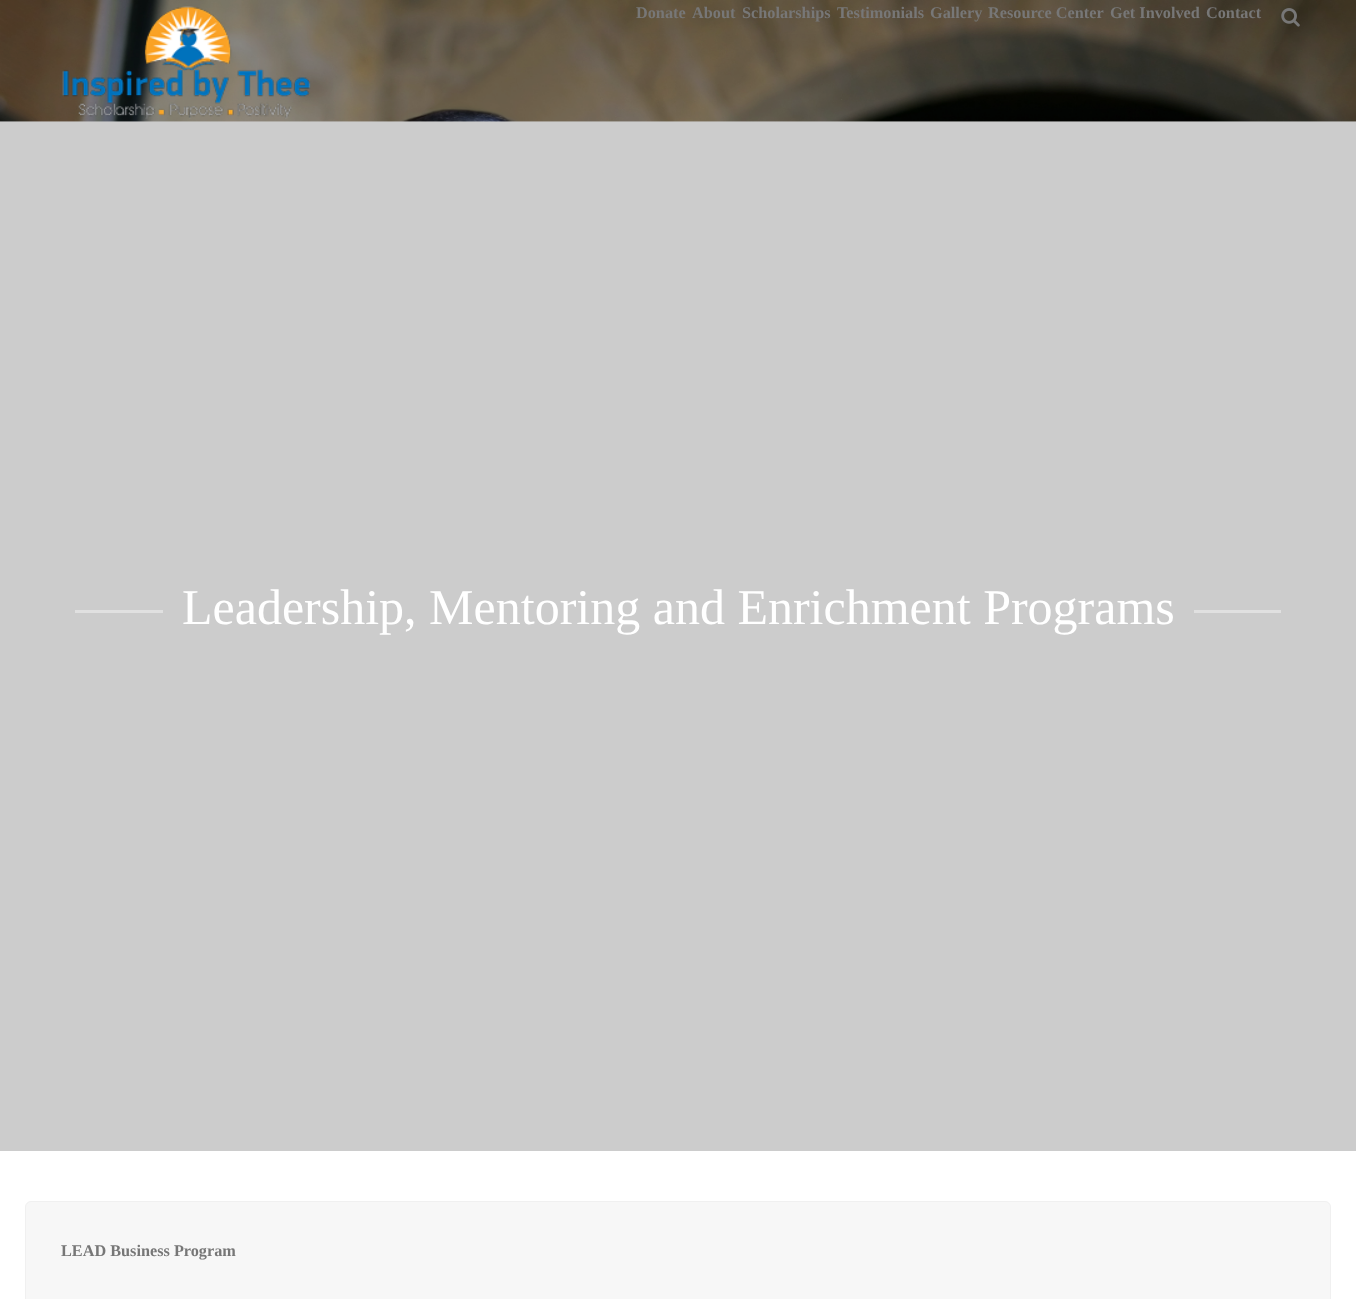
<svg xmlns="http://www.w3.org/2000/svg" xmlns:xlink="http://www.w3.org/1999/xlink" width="1356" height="1299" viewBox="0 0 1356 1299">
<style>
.cls-1{font:bold 16.25px Liberation Serif;fill:#777777}
.cls-2{font:50px Liberation Serif;fill:#ffffff}
</style>
<rect width="100%" height="100%" fill="#ffffff"/>
<rect fill="#cccccc" x="0" y="121" width="1356" height="1030"/>
<image xlink:href="image2.png" x="0" y="0" width="1356" height="122"/>
<image xlink:href="image0.png" x="62" y="6" width="249" height="113"/>
<image xlink:href="image1.png" x="1281" y="8" width="19" height="19"/>
<rect fill="#e0e0e0" x="75" y="610" width="88" height="3"/>
<rect fill="#e0e0e0" x="1194" y="610" width="87" height="3"/>
<rect fill="#f7f7f7" stroke="#f0f0f0" x="25.5" y="1201.5" width="1305" height="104" rx="5.5"/>
<text class="cls-1" x="636" y="18">Donate</text>
<text class="cls-1" x="692" y="18">About</text>
<text class="cls-1" x="742" y="18">Scholarships</text>
<text class="cls-1" x="837" y="18">Testimonials</text>
<text class="cls-1" x="930" y="18">Gallery</text>
<text class="cls-1" x="988" y="18">Resource Center</text>
<text class="cls-1" x="1110" y="18">Get Involved</text>
<text class="cls-1" x="1206" y="18">Contact</text>
<text class="cls-2" x="182" y="624">Leadership, Mentoring and Enrichment Programs</text>
<text class="cls-1" x="61" y="1256">LEAD Business Program</text>
</svg>
